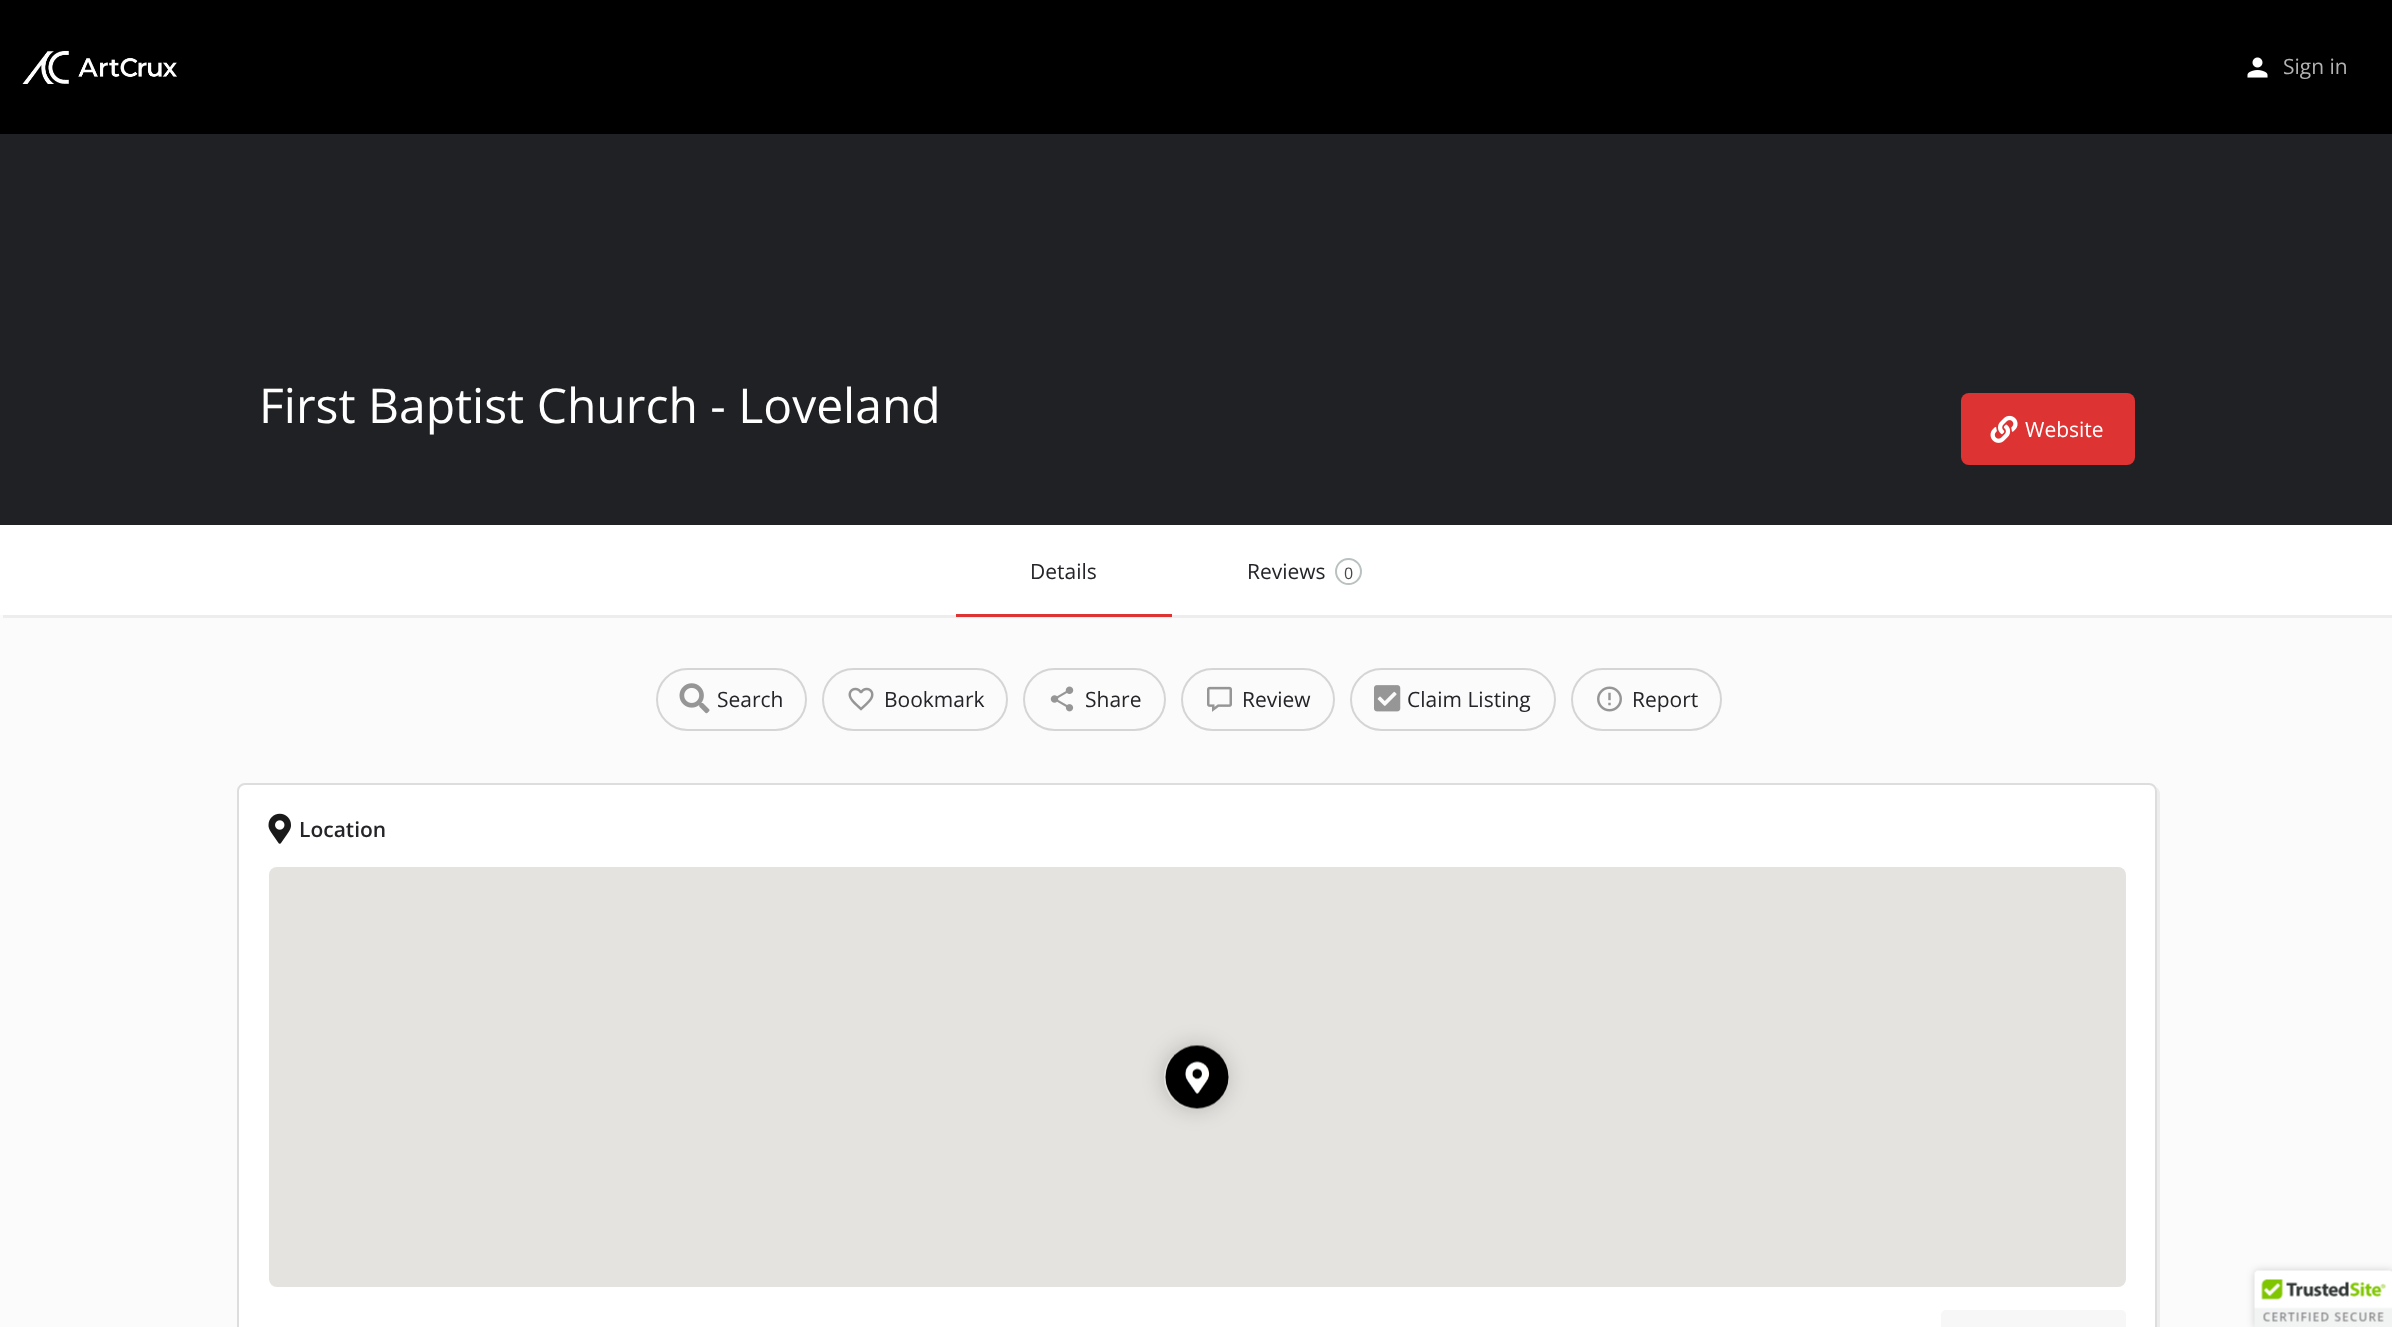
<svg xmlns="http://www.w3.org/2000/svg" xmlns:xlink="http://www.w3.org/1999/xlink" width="2392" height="1327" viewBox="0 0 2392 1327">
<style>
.cls-1{font:21px Open Sans;fill:#b3b3b3}
.cls-2{font:48px Open Sans;fill:#ffffff}
.cls-3{font:21px Open Sans;fill:#ffffff}
.cls-4{font:21px Open Sans;fill:#242429}
.cls-5{font:16px Open Sans;fill:#484848}
.cls-6{font:600 21px Open Sans;fill:#242429}
</style>
<defs>
<clipPath id="clip1"><path d="M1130 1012H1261V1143H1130ZM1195.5 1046C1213 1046 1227 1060 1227 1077.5C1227 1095 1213 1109 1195.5 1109C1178 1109 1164 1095 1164 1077.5C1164 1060 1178 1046 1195.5 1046Z" clip-rule="evenodd"/></clipPath>
</defs>
<rect width="100%" height="100%" fill="#fbfbfb"/>
<rect fill="#000000" x="0" y="0" width="2392" height="134"/>
<image xlink:href="image0.png" x="22" y="50" width="155" height="34"/>
<image xlink:href="image1.png" x="2247" y="57" width="21" height="21"/>
<rect fill="#202125" x="0" y="134" width="2392" height="391"/>
<rect fill="#dd3333" x="1961" y="393" width="174" height="72" rx="8"/>
<image xlink:href="image2.png" x="1990" y="415" width="28" height="28"/>
<path fill="#ededed" d="M3 615V618H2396V528H2392V615Z"/>
<rect fill="#ffffff" x="0" y="525" width="2392" height="90"/>
<rect fill="#dd3333" x="956" y="614" width="216" height="3"/>
<circle fill="none" stroke="#bac1c1" stroke-width="2" cx="1348.5" cy="571.5" r="12.5"/>
<rect fill="none" stroke="#d5d5d5" stroke-width="2" x="657" y="669" width="149" height="61" rx="30.5"/>
<image xlink:href="image3.png" x="679" y="683" width="31" height="31"/>
<rect fill="none" stroke="#d5d5d5" stroke-width="2" x="823" y="669" width="184" height="61" rx="30.5"/>
<image xlink:href="image4.png" x="848" y="687" width="26" height="24"/>
<rect fill="none" stroke="#d5d5d5" stroke-width="2" x="1024" y="669" width="141" height="61" rx="30.5"/>
<image xlink:href="image5.png" x="1050" y="686" width="24" height="26"/>
<rect fill="none" stroke="#d5d5d5" stroke-width="2" x="1182" y="669" width="152" height="61" rx="30.5"/>
<image xlink:href="image6.png" x="1207" y="686" width="25" height="26"/>
<rect fill="none" stroke="#d5d5d5" stroke-width="2" x="1351" y="669" width="204" height="61" rx="30.5"/>
<image xlink:href="image7.png" x="1374" y="685" width="27" height="27"/>
<rect fill="none" stroke="#d5d5d5" stroke-width="2" x="1572" y="669" width="149" height="61" rx="30.5"/>
<image xlink:href="image8.png" x="1597" y="686" width="25" height="26"/>
<path fill="#ededed" d="M241 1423C242 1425 245 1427 248 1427H2152C2156 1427 2160 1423 2160 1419V794C2160 791 2159 789 2156 787L2157 790V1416C2157 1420 2154 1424 2150 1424H244Z"/>
<rect fill="#ffffff" stroke="#dddddd" stroke-width="2" x="238" y="784" width="1918" height="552" rx="7"/>
<image xlink:href="image9.png" x="268" y="813" width="23" height="31"/>
<rect fill="#e5e3df" x="269" y="867" width="1857" height="420" rx="8"/>
<g clip-path="url(#clip1)">
<rect fill="#000000" fill-opacity="0.2" filter="blur(11px)" x="1164" y="1046" width="63" height="63" rx="31.5"/>
</g>
<image xlink:href="image10.png" x="1165" y="1045" width="64" height="64"/>
<rect fill="#f7f7f7" x="1941" y="1310" width="185" height="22" rx="5"/>
<rect fill="#000000" fill-opacity="0.2" filter="blur(4px)" x="2255" y="1271" width="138" height="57" rx="3"/>
<path fill="#ffffff" d="M2258 1271H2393V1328H2255V1274C2255 1272.5 2256.5 1271 2258 1271Z"/>
<image xlink:href="image11.png" x="2254" y="1270" width="138" height="57"/>
<text class="cls-1" x="2283" y="74">Sign in</text>
<text class="cls-2" x="259" y="423">First Baptist Church - Loveland</text>
<text class="cls-3" x="2025" y="437">Website</text>
<text class="cls-4" x="1030" y="579">Details</text>
<text class="cls-4" x="1247" y="579">Reviews</text>
<text class="cls-5" x="1344" y="579">0</text>
<text class="cls-4" x="717" y="707">Search</text>
<text class="cls-4" x="884" y="707">Bookmark</text>
<text class="cls-4" x="1085" y="707">Share</text>
<text class="cls-4" x="1242" y="707">Review</text>
<text class="cls-4" x="1407" y="707">Claim Listing</text>
<text class="cls-4" x="1632" y="707">Report</text>
<text class="cls-6" x="299" y="837">Location</text>
</svg>
